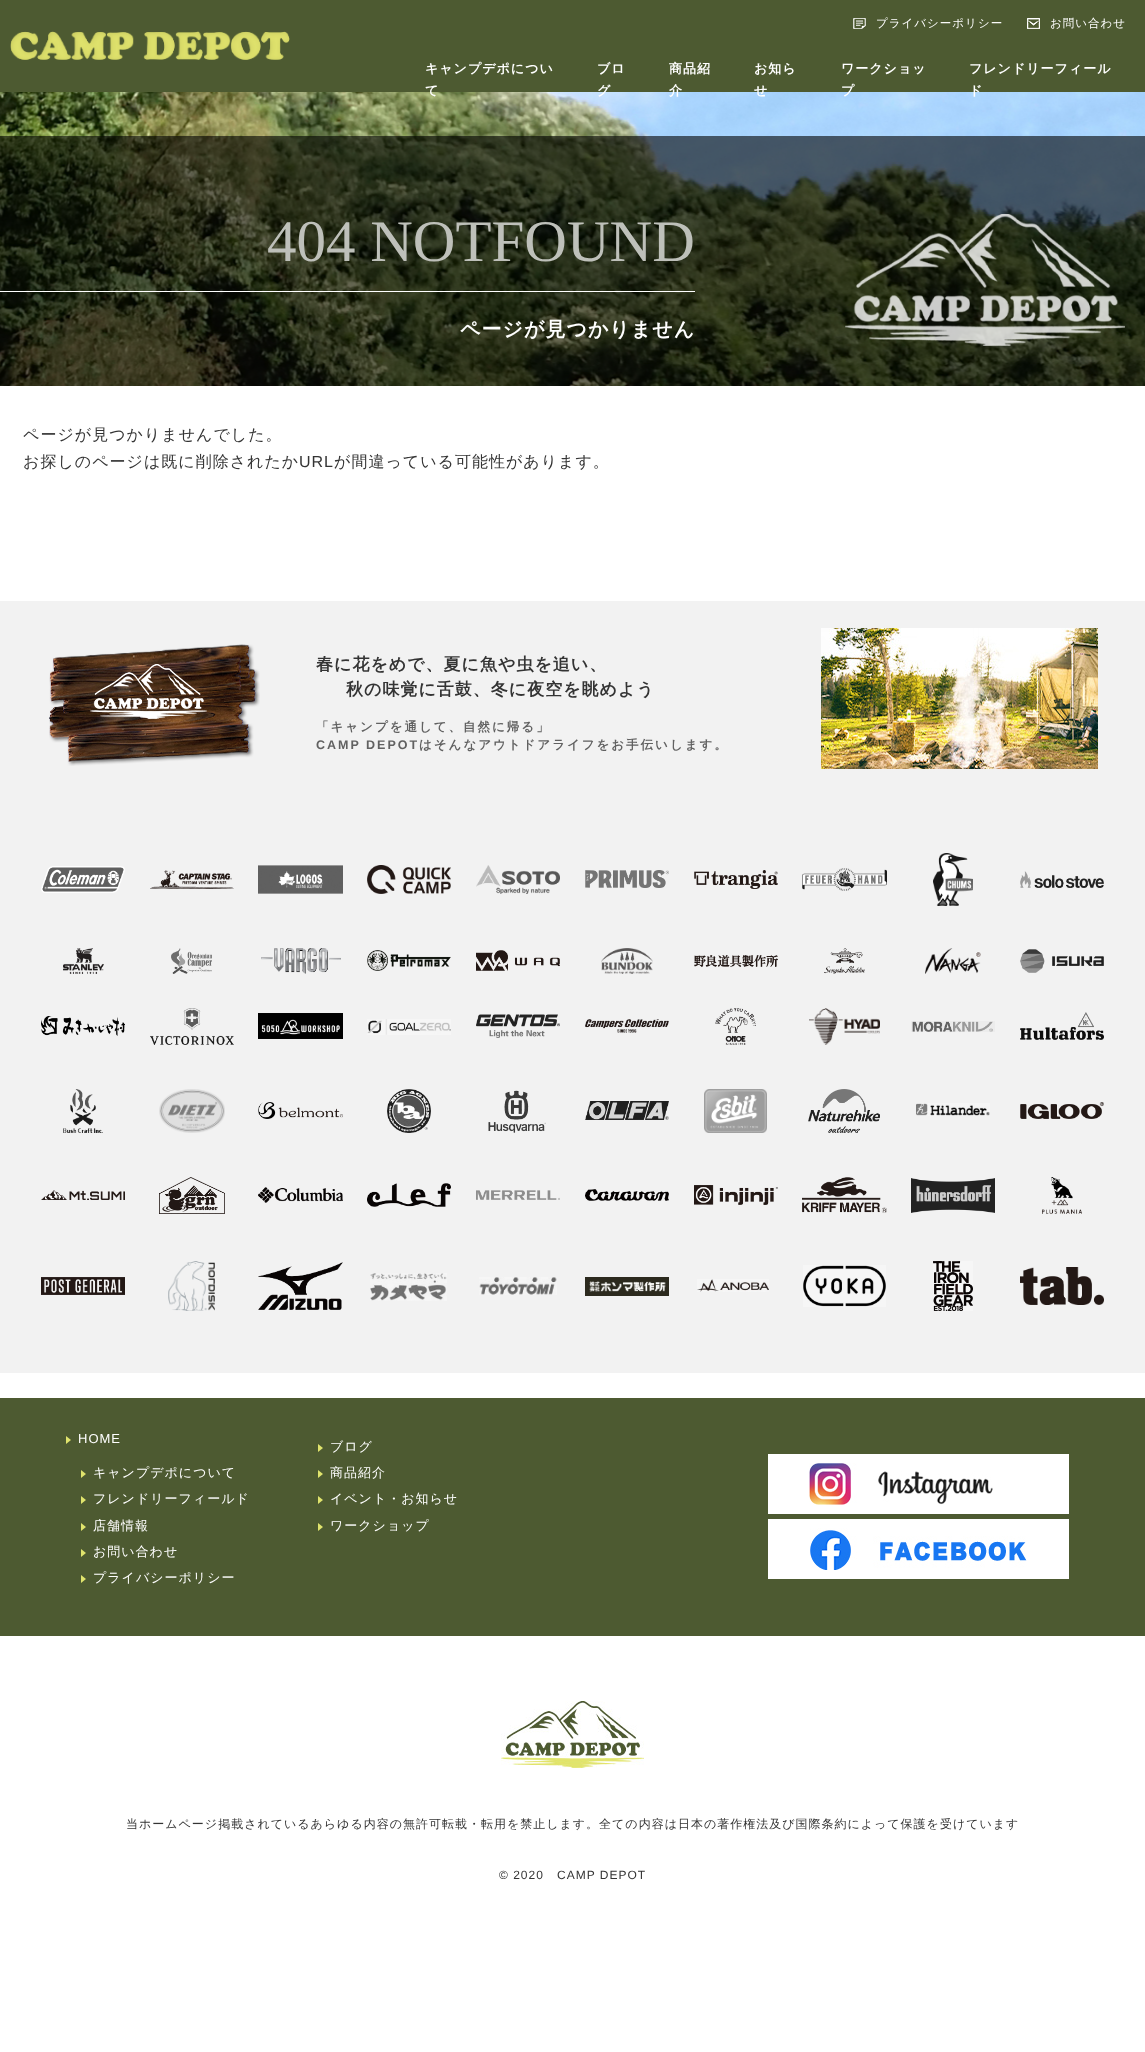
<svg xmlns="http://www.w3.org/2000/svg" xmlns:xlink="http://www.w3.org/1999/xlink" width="1145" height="2052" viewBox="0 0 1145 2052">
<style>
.cls-1{font:500 11.5px WenQuanYi Zen Hei;letter-spacing:1px;fill:#ffffff}
.cls-2{font:bold 13px WenQuanYi Zen Hei;letter-spacing:1px;fill:#ffffff}
.cls-3{font:59px Liberation Serif;fill:#bec0ba}
.cls-4{font:bold 20px WenQuanYi Zen Hei;letter-spacing:1px;fill:#ffffff}
.cls-5{font:500 16px WenQuanYi Zen Hei;letter-spacing:1px;fill:#343434}
.cls-6{font:16px Liberation Sans;letter-spacing:1px;fill:#343434}
.cls-7{font:bold 17px WenQuanYi Zen Hei;letter-spacing:1px;fill:#343434}
.cls-8{font:bold 12.5px WenQuanYi Zen Hei;letter-spacing:2px;fill:#616161}
.cls-9{font:bold 12.5px Liberation Sans;letter-spacing:2px;fill:#616161}
.cls-10{font:13px Liberation Sans;letter-spacing:1px;fill:#ffffff}
.cls-11{font:500 13px WenQuanYi Zen Hei;letter-spacing:1px;fill:#ffffff}
.cls-12{font:500 12px WenQuanYi Zen Hei;letter-spacing:1px;fill:#343434}
.cls-13{font:12px Liberation Sans;letter-spacing:1px;fill:#343434}
</style>
<rect width="100%" height="100%" fill="#ffffff"/>
<rect fill="#4d5a31" x="0" y="0" width="1145" height="92"/>
<image xlink:href="image0.png" x="853" y="18" width="13" height="11"/>
<image xlink:href="image1.png" x="1027" y="18" width="13" height="11"/>
<image xlink:href="image2.png" x="10" y="31" width="280" height="29"/>
<image xlink:href="image3.png" x="0" y="92" width="1145" height="294"/>
<rect fill="#000000" fill-opacity="0.6" x="0" y="136" width="1145" height="250"/>
<image xlink:href="image4.png" x="845" y="214" width="280" height="132"/>
<rect fill="#ffffff" x="0" y="291" width="695" height="1"/>
<rect fill="#f2f2f2" x="0" y="601" width="1145" height="772"/>
<image xlink:href="image5.png" x="821" y="628" width="277" height="141"/>
<image xlink:href="image6.png" x="49" y="644" width="211" height="122"/>
<image xlink:href="image7.png" x="41" y="866" width="84" height="27"/>
<image xlink:href="image8.png" x="150" y="870" width="84" height="19"/>
<image xlink:href="image9.png" x="258" y="865" width="85" height="29"/>
<image xlink:href="image10.png" x="367" y="865" width="84" height="29"/>
<image xlink:href="image11.png" x="476" y="865" width="84" height="29"/>
<image xlink:href="image12.png" x="585" y="870" width="84" height="18"/>
<image xlink:href="image13.png" x="694" y="870" width="84" height="19"/>
<image xlink:href="image14.png" x="802" y="868" width="85" height="23"/>
<image xlink:href="image15.png" x="933" y="853" width="40" height="53"/>
<image xlink:href="image16.png" x="1020" y="871" width="84" height="17"/>
<image xlink:href="image17.png" x="63" y="948" width="41" height="26"/>
<image xlink:href="image18.png" x="171" y="948" width="41" height="26"/>
<image xlink:href="image19.png" x="261" y="948" width="80" height="26"/>
<image xlink:href="image20.png" x="367" y="950" width="84" height="21"/>
<image xlink:href="image21.png" x="476" y="950" width="84" height="21"/>
<image xlink:href="image22.png" x="601" y="948" width="52" height="26"/>
<image xlink:href="image23.png" x="694" y="955" width="84" height="12"/>
<image xlink:href="image24.png" x="824" y="948" width="41" height="26"/>
<image xlink:href="image25.png" x="925" y="948" width="56" height="26"/>
<image xlink:href="image26.png" x="1020" y="949" width="84" height="24"/>
<image xlink:href="image27.png" x="41" y="1016" width="84" height="20"/>
<image xlink:href="image28.png" x="150" y="1008" width="84" height="37"/>
<image xlink:href="image29.png" x="258" y="1013" width="85" height="26"/>
<image xlink:href="image30.png" x="367" y="1019" width="84" height="16"/>
<image xlink:href="image31.png" x="476" y="1014" width="84" height="24"/>
<image xlink:href="image32.png" x="585" y="1019" width="84" height="14"/>
<image xlink:href="image33.png" x="715" y="1008" width="41" height="37"/>
<image xlink:href="image34.png" x="809" y="1008" width="71" height="37"/>
<image xlink:href="image35.png" x="911" y="1021" width="84" height="11"/>
<image xlink:href="image36.png" x="1020" y="1012" width="84" height="28"/>
<image xlink:href="image37.png" x="63" y="1089" width="40" height="44"/>
<image xlink:href="image38.png" x="159" y="1089" width="66" height="44"/>
<image xlink:href="image39.png" x="258" y="1102" width="85" height="17"/>
<image xlink:href="image40.png" x="387" y="1089" width="44" height="44"/>
<image xlink:href="image41.png" x="488" y="1090" width="58" height="43"/>
<image xlink:href="image42.png" x="585" y="1101" width="84" height="19"/>
<image xlink:href="image43.png" x="704" y="1089" width="63" height="44"/>
<image xlink:href="image44.png" x="808" y="1089" width="72" height="44"/>
<image xlink:href="image45.png" x="916" y="1103" width="74" height="13"/>
<image xlink:href="image46.png" x="1020" y="1102" width="84" height="17"/>
<image xlink:href="image47.png" x="41" y="1190" width="84" height="10"/>
<image xlink:href="image48.png" x="159" y="1177" width="66" height="37"/>
<image xlink:href="image49.png" x="258" y="1187" width="85" height="16"/>
<image xlink:href="image50.png" x="367" y="1183" width="84" height="24"/>
<image xlink:href="image51.png" x="476" y="1190" width="84" height="10"/>
<image xlink:href="image52.png" x="585" y="1189" width="84" height="12"/>
<image xlink:href="image53.png" x="694" y="1185" width="84" height="20"/>
<image xlink:href="image54.png" x="802" y="1177" width="85" height="36"/>
<image xlink:href="image55.png" x="911" y="1178" width="84" height="35"/>
<image xlink:href="image56.png" x="1042" y="1177" width="40" height="37"/>
<image xlink:href="image57.png" x="41" y="1277" width="84" height="18"/>
<image xlink:href="image58.png" x="168" y="1261" width="47" height="50"/>
<image xlink:href="image59.png" x="258" y="1262" width="85" height="48"/>
<image xlink:href="image60.png" x="370" y="1273" width="77" height="28"/>
<image xlink:href="image61.png" x="479" y="1277" width="78" height="18"/>
<image xlink:href="image62.png" x="585" y="1277" width="84" height="19"/>
<image xlink:href="image63.png" x="697" y="1279" width="72" height="13"/>
<image xlink:href="image64.png" x="803" y="1265" width="83" height="42"/>
<image xlink:href="image65.png" x="933" y="1261" width="40" height="50"/>
<image xlink:href="image66.png" x="1020" y="1267" width="84" height="38"/>
<rect fill="#4d5a31" x="0" y="1398" width="1145" height="238"/>
<path fill="#e0e46d" d="M66 1444V1436L71 1440Z"/>
<path fill="#e0e46d" d="M81 1478V1470L86 1474Z"/>
<path fill="#e0e46d" d="M81 1504V1496L86 1500Z"/>
<path fill="#e0e46d" d="M81 1531V1523L86 1527Z"/>
<path fill="#e0e46d" d="M81 1557V1549L86 1553Z"/>
<path fill="#e0e46d" d="M81 1583V1575L86 1579Z"/>
<path fill="#e0e46d" d="M318 1452V1444L323 1448Z"/>
<path fill="#e0e46d" d="M318 1478V1470L323 1474Z"/>
<path fill="#e0e46d" d="M318 1504V1496L323 1500Z"/>
<path fill="#e0e46d" d="M318 1531V1523L323 1527Z"/>
<rect fill="#ffffff" x="768" y="1454" width="301" height="60"/>
<image xlink:href="image67.png" x="809" y="1463" width="184" height="42"/>
<rect fill="#ffffff" x="768" y="1519" width="301" height="60"/>
<image xlink:href="image68.png" x="810" y="1528" width="217" height="42"/>
<image xlink:href="image69.png" x="501" y="1701" width="143" height="67"/>
<text class="cls-1" x="876" y="27">プライバシーポリシー</text>
<text class="cls-1" x="1050" y="27">お問い合わせ</text>
<text class="cls-2"><tspan x="425" y="73">キャンプデポについ</tspan><tspan x="425" y="95">て</tspan></text>
<text class="cls-2"><tspan x="597" y="73">ブロ</tspan><tspan x="597" y="95">グ</tspan></text>
<text class="cls-2"><tspan x="669" y="73">商品紹</tspan><tspan x="669" y="95">介</tspan></text>
<text class="cls-2"><tspan x="754" y="73">お知ら</tspan><tspan x="754" y="95">せ</tspan></text>
<text class="cls-2"><tspan x="841" y="73">ワークショッ</tspan><tspan x="841" y="95">プ</tspan></text>
<text class="cls-2"><tspan x="969" y="73">フレンドリーフィール</tspan><tspan x="969" y="95">ド</tspan></text>
<text class="cls-3" x="267" y="261">404 NOTFOUND</text>
<text class="cls-4" x="460" y="336">ページが見つかりません</text>
<text class="cls-5"><tspan x="23" y="440">ページが見つかりませんでした。</tspan><tspan x="23" y="467">お探しのページは既に削除されたか</tspan></text>
<text class="cls-6" x="299" y="467">URL</text>
<text class="cls-5" x="334" y="467">が間違っている可能性があります。</text>
<text class="cls-7" x="316" y="670">春に花をめで、夏に魚や虫を追い、</text>
<text class="cls-7" x="346" y="695">秋の味覚に舌鼓、冬に夜空を眺めよう</text>
<text class="cls-8" x="316" y="731">「キャンプを通して、自然に帰る」</text>
<text class="cls-9" x="316" y="749">CAMP DEPOT</text>
<text class="cls-8" x="419" y="749">はそんなアウトドアライフをお手伝いします。</text>
<text class="cls-10" x="78" y="1443">HOME</text>
<text class="cls-11" x="93" y="1477">キャンプデポについて</text>
<text class="cls-11" x="93" y="1503">フレンドリーフィールド</text>
<text class="cls-11" x="93" y="1530">店舗情報</text>
<text class="cls-11" x="93" y="1556">お問い合わせ</text>
<text class="cls-11" x="93" y="1582">プライバシーポリシー</text>
<text class="cls-11" x="330" y="1451">ブログ</text>
<text class="cls-11" x="330" y="1477">商品紹介</text>
<text class="cls-11" x="330" y="1503">イベント・お知らせ</text>
<text class="cls-11" x="330" y="1530">ワークショップ</text>
<text class="cls-12" x="126" y="1828">当ホームページ掲載されているあらゆる内容の無許可転載・転用を禁止します。全ての内容は日本の著作権法及び国際条約によって保護を受けています</text>
<text class="cls-13" x="499" y="1879">© 2020</text>
<text class="cls-13" x="557" y="1879">CAMP DEPOT</text>
</svg>
